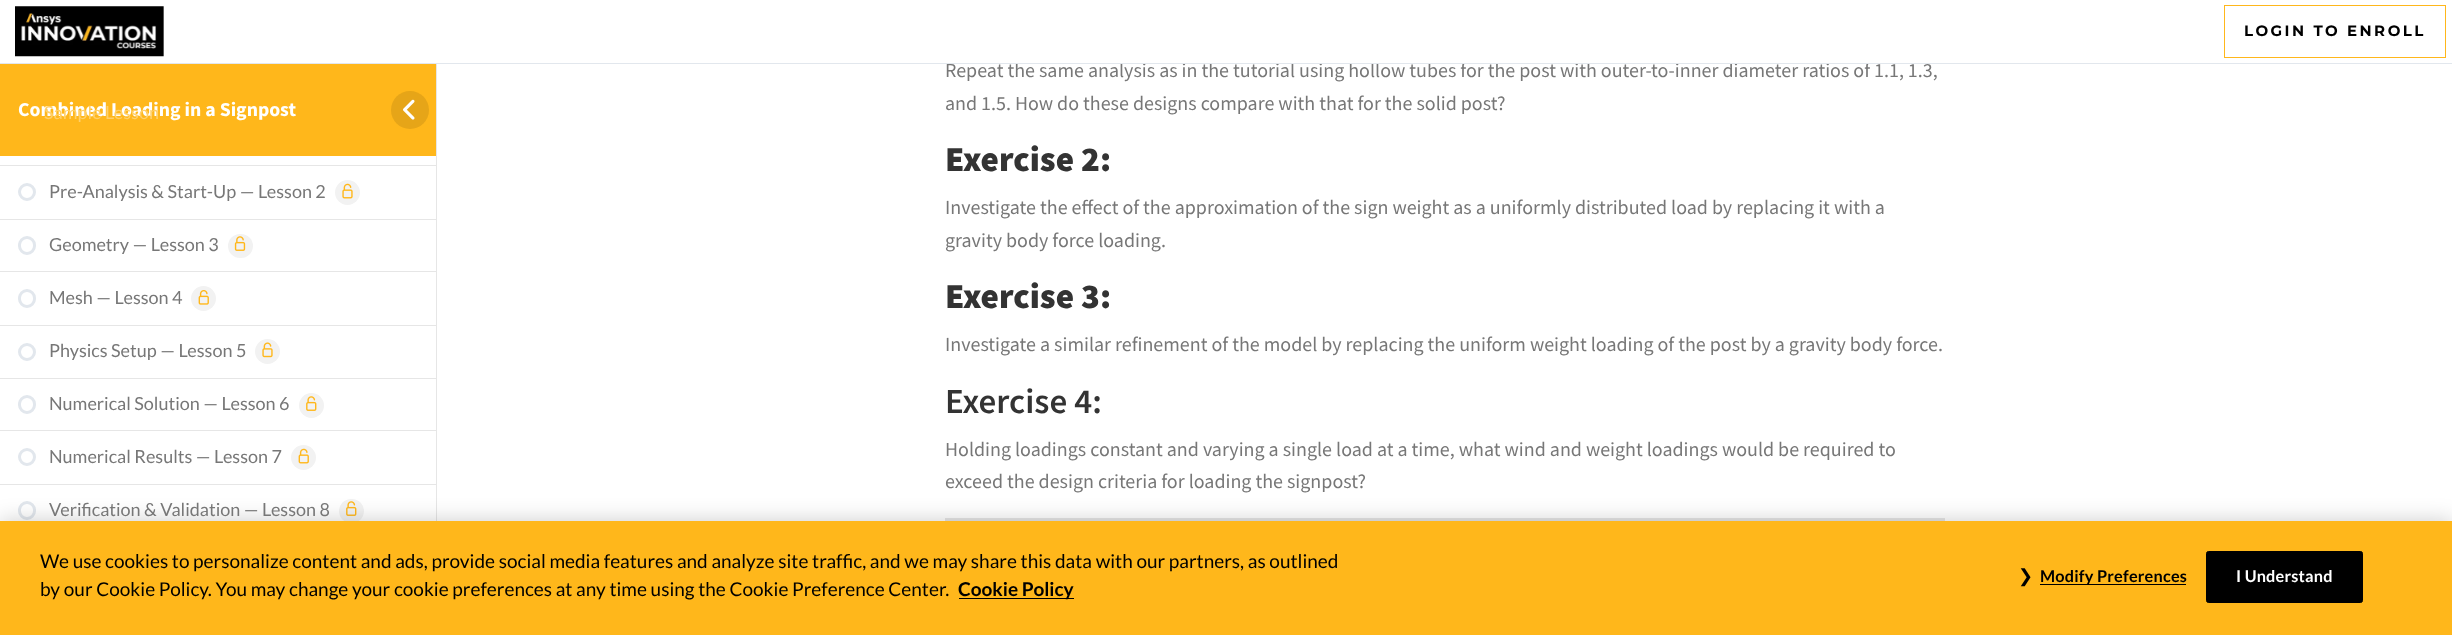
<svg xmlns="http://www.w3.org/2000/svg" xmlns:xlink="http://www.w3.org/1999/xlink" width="2452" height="635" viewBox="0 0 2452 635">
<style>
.cls-1{font:bold 19.75px Source Sans Pro;fill:#ffffff}
.cls-2{font:18px Lato;fill:#777777}
.cls-3{font:bold 15px Montserrat;letter-spacing:2.5px;fill:#000000}
.cls-4{font:20px Source Sans Pro;fill:#777777}
.cls-5{font:900 35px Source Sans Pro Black;fill:#333333}
.cls-6{font:600 35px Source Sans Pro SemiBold;fill:#333333}
.cls-7{font:18px Lato;fill:#ffd06a}
.cls-8{font:19px Lato;fill:#000000}
.cls-9{font:bold 19px Lato;fill:#000000}
.cls-10{font:18px DejaVu Sans;letter-spacing:0.2px;fill:#000000}
.cls-11{font:bold 16.25px Lato;letter-spacing:0.2px;fill:#000000}
.cls-12{font:bold 16.25px Lato;letter-spacing:0.2px;fill:#ffffff}
</style>
<rect width="100%" height="100%" fill="#ffffff"/>
<rect fill="#e6e6e6" x="436" y="64" width="1" height="457"/>
<rect fill="#ffb71b" x="0" y="64" width="436" height="92"/>
<circle fill="#e6a518" cx="410" cy="110" r="19"/>
<image xlink:href="image0.png" x="403" y="99" width="12" height="21"/>
<rect fill="#e6e6e6" x="0" y="165" width="436" height="1"/>
<rect fill="#e6e6e6" x="0" y="219" width="436" height="1"/>
<circle fill="none" stroke="#e2e7ed" stroke-width="3" cx="27" cy="192" r="7.5"/>
<circle fill="#f2f2f2" cx="347.5" cy="192.5" r="12.5"/>
<image xlink:href="image1.png" x="342" y="183" width="11" height="16"/>
<rect fill="#e6e6e6" x="0" y="271" width="436" height="1"/>
<rect fill="none" stroke="#e2e7ed" stroke-width="3" x="19.5" y="237.5" width="15" height="16" rx="7.5"/>
<rect fill="#f2f2f2" x="228" y="234" width="25" height="24" rx="12"/>
<image xlink:href="image2.png" x="234" y="236" width="12" height="15"/>
<rect fill="#e6e6e6" x="0" y="325" width="436" height="1"/>
<rect fill="none" stroke="#e2e7ed" stroke-width="3" x="19.5" y="290.5" width="15" height="16" rx="7.5"/>
<circle fill="#f2f2f2" cx="203.5" cy="298.5" r="12.5"/>
<image xlink:href="image3.png" x="198" y="290" width="11" height="15"/>
<rect fill="#e6e6e6" x="0" y="378" width="436" height="1"/>
<circle fill="none" stroke="#e2e7ed" stroke-width="3" cx="27" cy="352" r="7.5"/>
<circle fill="#f2f2f2" cx="267.5" cy="351.5" r="12.5"/>
<image xlink:href="image4.png" x="262" y="342" width="11" height="16"/>
<rect fill="#e6e6e6" x="0" y="430" width="436" height="1"/>
<rect fill="none" stroke="#e2e7ed" stroke-width="3" x="19.5" y="396.5" width="15" height="16" rx="7.5"/>
<circle fill="#f2f2f2" cx="311.5" cy="405.5" r="12.5"/>
<image xlink:href="image5.png" x="306" y="396" width="11" height="15"/>
<rect fill="#e6e6e6" x="0" y="484" width="436" height="1"/>
<circle fill="none" stroke="#e2e7ed" stroke-width="3" cx="27" cy="457" r="7.5"/>
<circle fill="#f2f2f2" cx="303.5" cy="457.5" r="12.5"/>
<image xlink:href="image6.png" x="298" y="448" width="11" height="16"/>
<rect fill="none" stroke="#e2e7ed" stroke-width="3" x="19.5" y="502.5" width="15" height="16" rx="7.5"/>
<rect fill="#f2f2f2" x="339" y="499" width="25" height="24" rx="12"/>
<image xlink:href="image5.png" x="346" y="501" width="11" height="15"/>
<image xlink:href="image7.png" x="15" y="6" width="149" height="51"/>
<rect fill="none" stroke="#ffb71b" x="2224.5" y="5.5" width="221" height="52"/>
<rect fill="#e6e6e6" x="945" y="518" width="1000" height="3"/>
<path fill="#ffffff" fill-rule="evenodd" d="M14 185.5L13 186.5L17.5 190.5L18.5 189.5ZM19.5 189L22 186.5Z"/>
<path fill="#ffffff" d="M16 236L13 239L17.5 243.5L18.5 242.5L14 238.5ZM16 289.5L13 292L17.5 296.5L18.5 295.5L14 291.5Z"/>
<path fill="#ffffff" d="M16 395.5L13 398L17.5 402.5L18.5 401.5L14 397.5ZM16 448.5L13 451L17.5 455.5L18.5 454.5L14 450.5Z"/>
<path fill="#ffffff" d="M15.5 501.5L13 504L17.5 508.5L18.5 507.5L14 503.5Z"/>
<rect fill="#000000" fill-opacity="0.2" filter="blur(11px)" x="0" y="521" width="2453" height="114"/>
<rect fill="#ffb71b" x="0" y="521" width="2452" height="114"/>
<rect fill="#000000" x="959" y="598" width="115" height="1"/>
<rect fill="#000000" x="2040" y="584" width="146" height="1"/>
<rect fill="#000000" stroke="#000000" x="2206.5" y="551.5" width="156" height="51" rx="2"/>
<text class="cls-1" x="18" y="116">Combined Loading in a Signpost</text>
<text class="cls-2" x="49" y="198">Pre-Analysis &amp; Start-Up — Lesson 2</text>
<text class="cls-2" x="49" y="251">Geometry — Lesson 3</text>
<text class="cls-2" x="49" y="304">Mesh — Lesson 4</text>
<text class="cls-2" x="49" y="357">Physics Setup — Lesson 5</text>
<text class="cls-2" x="49" y="410">Numerical Solution — Lesson 6</text>
<text class="cls-2" x="49" y="463">Numerical Results — Lesson 7</text>
<text class="cls-2" x="49" y="516">Verification &amp; Validation — Lesson 8</text>
<text class="cls-3" x="2244" y="36">LOGIN TO ENROLL</text>
<text class="cls-4" x="945" y="77">Repeat the same analysis as in the tutorial using hollow tubes for the post with outer-to-inner diameter ratios of 1.1, 1.3,</text>
<rect fill="#e2e7ed" x="0" y="63" width="2452" height="1"/>
<rect fill="#ffffff" x="1015" y="62" width="856" height="1"/>
<text class="cls-4" x="945" y="110">and 1.5. How do these designs compare with that for the solid post?</text>
<text class="cls-5" x="945" y="171">Exercise 2:</text>
<text class="cls-4"><tspan x="945" y="214">Investigate the effect of the approximation of the sign weight as a uniformly distributed load by replacing it with a</tspan><tspan x="945" y="247">gravity body force loading.</tspan></text>
<text class="cls-5" x="945" y="308">Exercise 3:</text>
<text class="cls-4" x="945" y="351">Investigate a similar refinement of the model by replacing the uniform weight loading of the post by a gravity body force.</text>
<text class="cls-6" x="945" y="413">Exercise 4:</text>
<text class="cls-4"><tspan x="945" y="456">Holding loadings constant and varying a single load at a time, what wind and weight loadings would be required to</tspan><tspan x="945" y="488">exceed the design criteria for loading the signpost?</tspan></text>
<text class="cls-7" x="44" y="119">Sample Lesson</text>
<text class="cls-8"><tspan x="40" y="568">We use cookies to personalize content and ads, provide social media features and analyze site traffic, and we may share this data with our partners, as outlined</tspan><tspan x="40" y="596">by our Cookie Policy. You may change your cookie preferences at any time using the Cookie Preference Center.</tspan></text>
<text class="cls-9" x="958" y="596">Cookie Policy</text>
<text class="cls-10" x="2018" y="582">❯</text>
<text class="cls-11" x="2040" y="582">Modify Preferences</text>
<text class="cls-12" x="2236" y="582">I Understand</text>
</svg>
